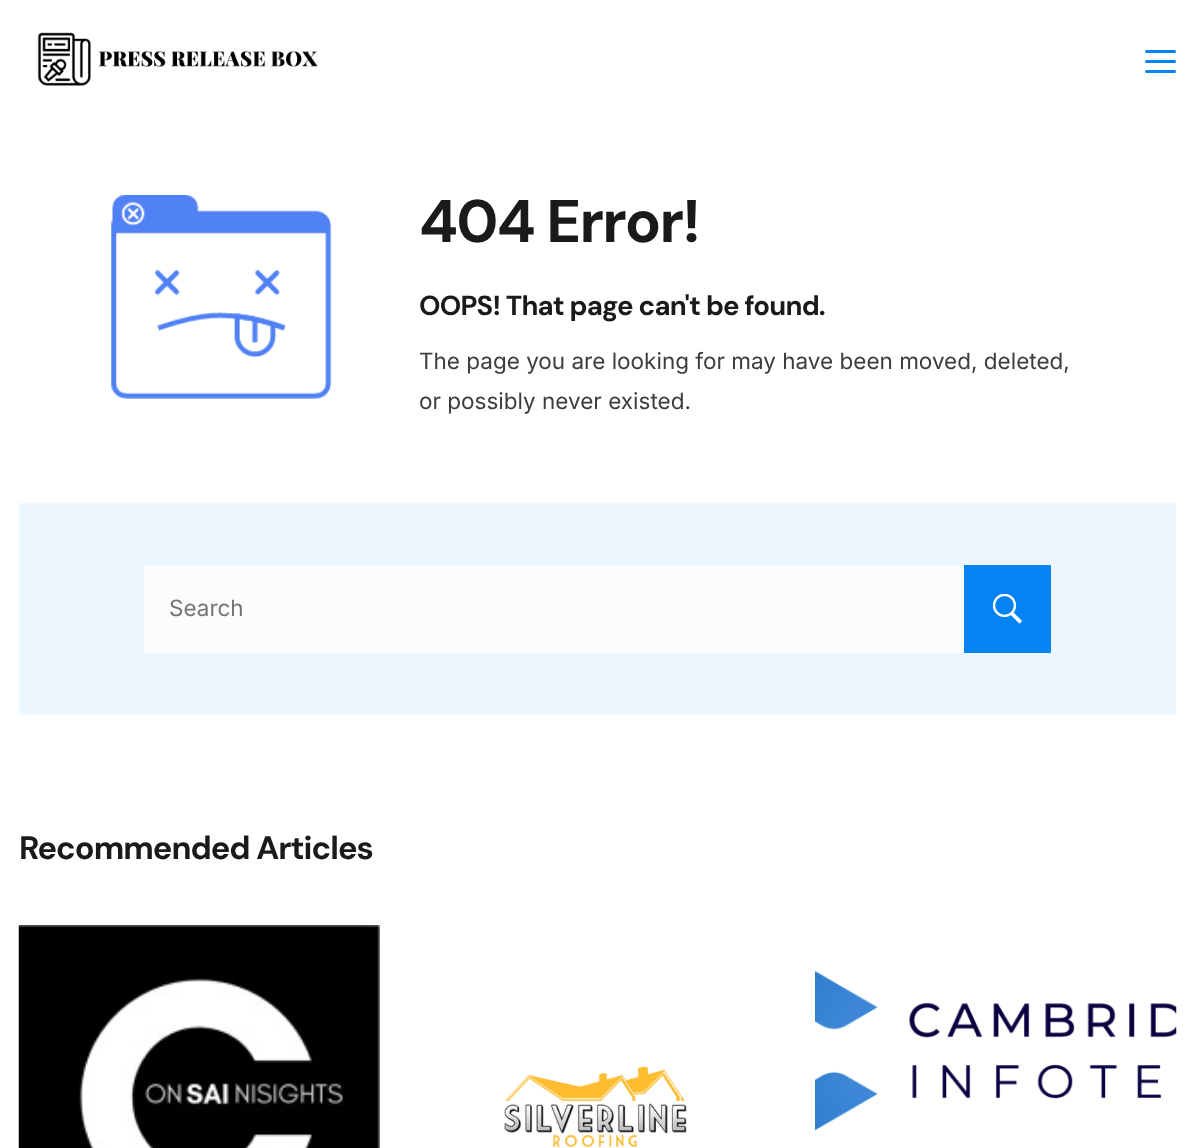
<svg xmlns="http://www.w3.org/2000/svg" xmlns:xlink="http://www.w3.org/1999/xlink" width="1195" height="1148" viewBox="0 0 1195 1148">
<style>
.cls-1{font:bold 60px DM Sans;letter-spacing:-1.75px;fill:#1b1919}
.cls-2{font:bold 27.5px DM Sans;letter-spacing:-0.8px;fill:#1b1919}
.cls-3{font:22.5px Inter;fill:#3e3c3c}
.cls-4{font:22.5px Inter;fill:#757575}
.cls-5{font:bold 32.5px DM Sans;letter-spacing:-1px;fill:#1b1919}
</style>
<rect width="100%" height="100%" fill="#ffffff"/>
<image xlink:href="image0.png" x="37" y="32" width="281" height="54"/>
<rect fill="#0583f2" x="1145" y="60" width="31" height="3" rx="1.5"/>
<rect fill="#0583f2" x="1145" y="50" width="31" height="3" rx="1.5"/>
<rect fill="#0583f2" x="1145" y="70" width="31" height="3" rx="1.5"/>
<image xlink:href="image1.png" x="111" y="195" width="221" height="204"/>
<rect fill="#edf7ff" x="19" y="503" width="1157" height="212"/>
<rect fill="#fcfcfc" x="144" y="565" width="820" height="88"/>
<rect fill="#0583f2" x="964" y="565" width="87" height="88"/>
<image xlink:href="image2.png" x="993" y="594" width="30" height="30"/>
<image xlink:href="image3.png" x="18" y="925" width="362" height="223"/>
<image xlink:href="image4.png" x="504" y="1066" width="183" height="82"/>
<image xlink:href="image5.png" x="815" y="970" width="362" height="161"/>
<text class="cls-1" x="419" y="242">404 Error!</text>
<text class="cls-2" x="419" y="315">OOPS! That page can't be found.</text>
<text class="cls-3"><tspan x="419" y="369">The page you are looking for may have been moved, deleted,</tspan><tspan x="419" y="409">or possibly never existed.</tspan></text>
<text class="cls-4" x="169" y="616">Search</text>
<text class="cls-5" x="19" y="859">Recommended Articles</text>
</svg>
